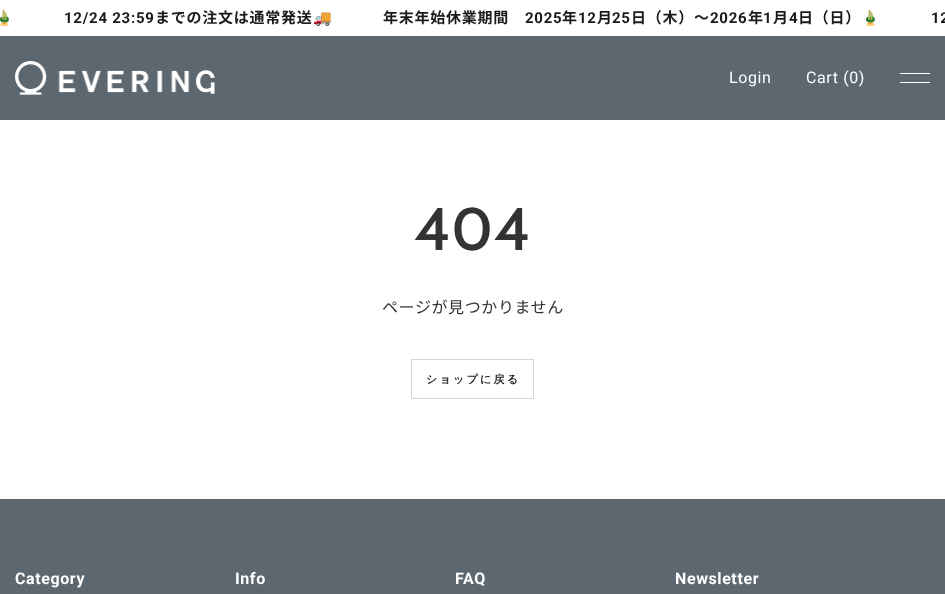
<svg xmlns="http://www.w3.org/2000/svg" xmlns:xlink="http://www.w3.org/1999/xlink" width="945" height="594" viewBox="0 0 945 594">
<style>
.cls-1{font:bold 15px Noto Color Emoji;letter-spacing:0.75px;fill:#1a1b18}
.cls-2{font:bold 15px Roboto;letter-spacing:0.75px;fill:#1a1b18}
.cls-3{font:bold 15px Noto Sans JP;letter-spacing:0.75px;fill:#1a1b18}
.cls-4{font:16px Roboto;letter-spacing:0.6px;fill:#ffffff}
.cls-5{font:600 60px Cabin;letter-spacing:0.6px;fill:#333333}
.cls-6{font:16px Noto Sans JP;letter-spacing:0.6px;fill:#333333}
.cls-7{font:bold 11px WenQuanYi Zen Hei;letter-spacing:2.25px;fill:#1a1b18}
.cls-8{font:bold 16px Roboto;letter-spacing:0.6px;fill:#ffffff}
</style>
<rect width="100%" height="100%" fill="#ffffff"/>
<rect fill="#5d6770" x="0" y="36" width="945" height="84"/>
<image xlink:href="image0.png" x="15" y="61" width="200" height="34"/>
<rect fill="#ffffff" x="900" y="73" width="30" height="1"/>
<rect fill="#ffffff" x="900" y="82" width="30" height="1"/>
<rect fill="none" stroke="#d2d5d9" x="411.5" y="359.5" width="122" height="39"/>
<rect fill="#5d6770" x="0" y="499" width="945" height="95"/>
<text class="cls-1" x="-5" y="23">🎍</text>
<text class="cls-2" x="64" y="23">12/24 23:59</text>
<text class="cls-3" x="155" y="23">までの注文は通常発送</text>
<text class="cls-1" x="313" y="23">🚚</text>
<text class="cls-3" x="383" y="23">年末年始休業期間</text>
<text class="cls-2" x="525" y="23">2025</text>
<text class="cls-3" x="562" y="23">年</text>
<text class="cls-2" x="578" y="23">12</text>
<text class="cls-3" x="597" y="23">月</text>
<text class="cls-2" x="612" y="23">25</text>
<text class="cls-3" x="631" y="23">日（木）～</text>
<text class="cls-2" x="710" y="23">2026</text>
<text class="cls-3" x="748" y="23">年</text>
<text class="cls-2" x="763" y="23">1</text>
<text class="cls-3" x="773" y="23">月</text>
<text class="cls-2" x="789" y="23">4</text>
<text class="cls-3" x="798" y="23">日（日）</text>
<text class="cls-1" x="861" y="23">🎍</text>
<text class="cls-2" x="931" y="23">12</text>
<text class="cls-4" x="729" y="83">Login</text>
<text class="cls-4" x="806" y="83">Cart (0)</text>
<text class="cls-5" x="414" y="250">404</text>
<text class="cls-6" x="382" y="313">ページが見つかりません</text>
<text class="cls-7" x="426" y="383">ショップに戻る</text>
<text class="cls-8" x="15" y="584">Category</text>
<text class="cls-8" x="235" y="584">Info</text>
<text class="cls-8" x="455" y="584">FAQ</text>
<text class="cls-8" x="675" y="584">Newsletter</text>
</svg>
